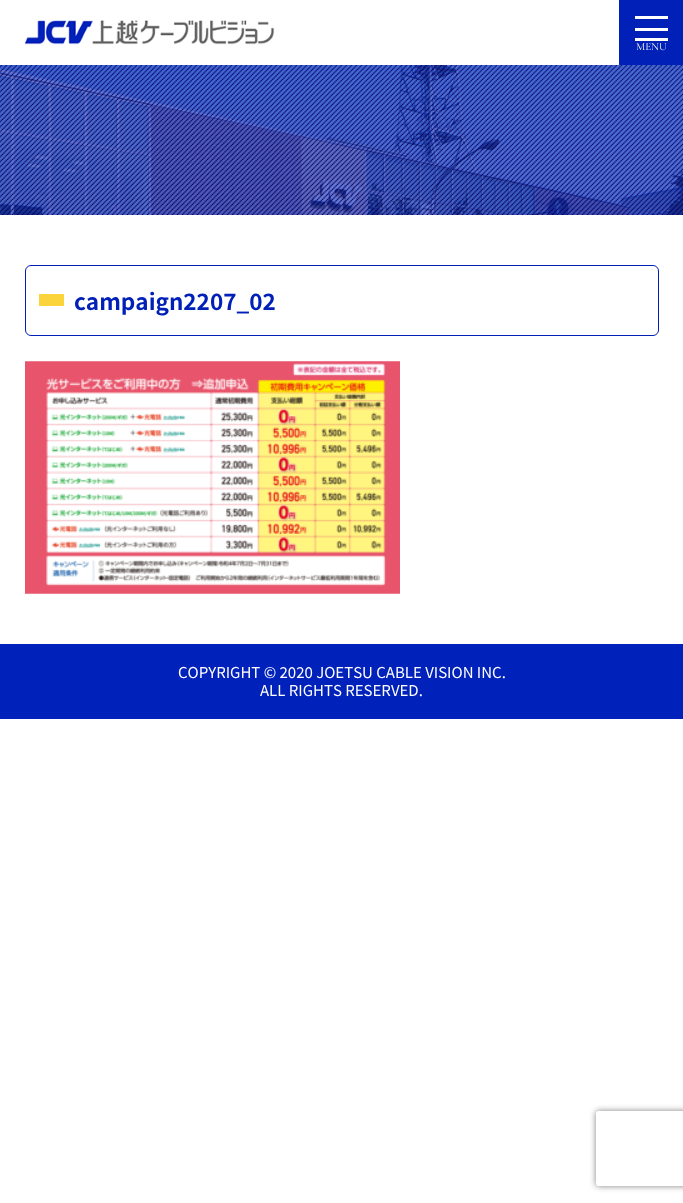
<svg xmlns="http://www.w3.org/2000/svg" xmlns:xlink="http://www.w3.org/1999/xlink" width="683" height="1203" viewBox="0 0 683 1203">
<style>*{font-kerning:none!important;font-variant-ligatures:none!important}</style>
<style>
.cls-1{font:11px Cormorant Garamond;fill:#ffffff}
.cls-2{font:bold 22.5px Noto Sans JP;fill:#0120b8}
.cls-3{font:15px Noto Sans JP;fill:#ffffff}
</style>
<defs>
<clipPath id="clip1"><path d="M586 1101H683V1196H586ZM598.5 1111H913.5C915 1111 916 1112 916 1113.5V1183.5C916 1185 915 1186 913.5 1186H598.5C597 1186 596 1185 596 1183.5V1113.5C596 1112 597 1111 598.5 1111Z" clip-rule="evenodd"/></clipPath>
</defs>
<rect width="100%" height="100%" fill="#ffffff"/>
<image xlink:href="image0.png" x="25" y="20" width="250" height="25"/>
<rect fill="#0120b8" x="619" y="0" width="64" height="65"/>
<rect fill="#ffffff" x="635" y="28" width="33" height="3"/>
<rect fill="#ffffff" x="635" y="16" width="33" height="3"/>
<rect fill="#ffffff" x="635" y="38" width="33" height="3"/>
<image xlink:href="image1.png" x="0" y="65" width="683" height="150"/>
<rect fill="none" stroke="#0120b8" x="25.5" y="265.5" width="633" height="70" rx="5.5"/>
<rect fill="#fbd43b" x="39" y="294" width="25" height="12"/>
<image xlink:href="image2.png" x="25" y="361" width="375" height="233"/>
<rect fill="#0021ba" x="0" y="644" width="683" height="75"/>
<g clip-path="url(#clip1)">
<rect fill="#808080" filter="blur(3px)" x="596" y="1111" width="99" height="75" rx="2.5"/>
</g>
<text class="cls-1" x="636" y="50">MENU</text>
<text class="cls-2" x="74" y="310">campaign2207_02</text>
<text class="cls-3" x="178" y="678">COPYRIGHT © 2020 JOETSU CABLE VISION INC.</text>
<text class="cls-3" x="260" y="696">ALL RIGHTS RESERVED.</text>
</svg>
